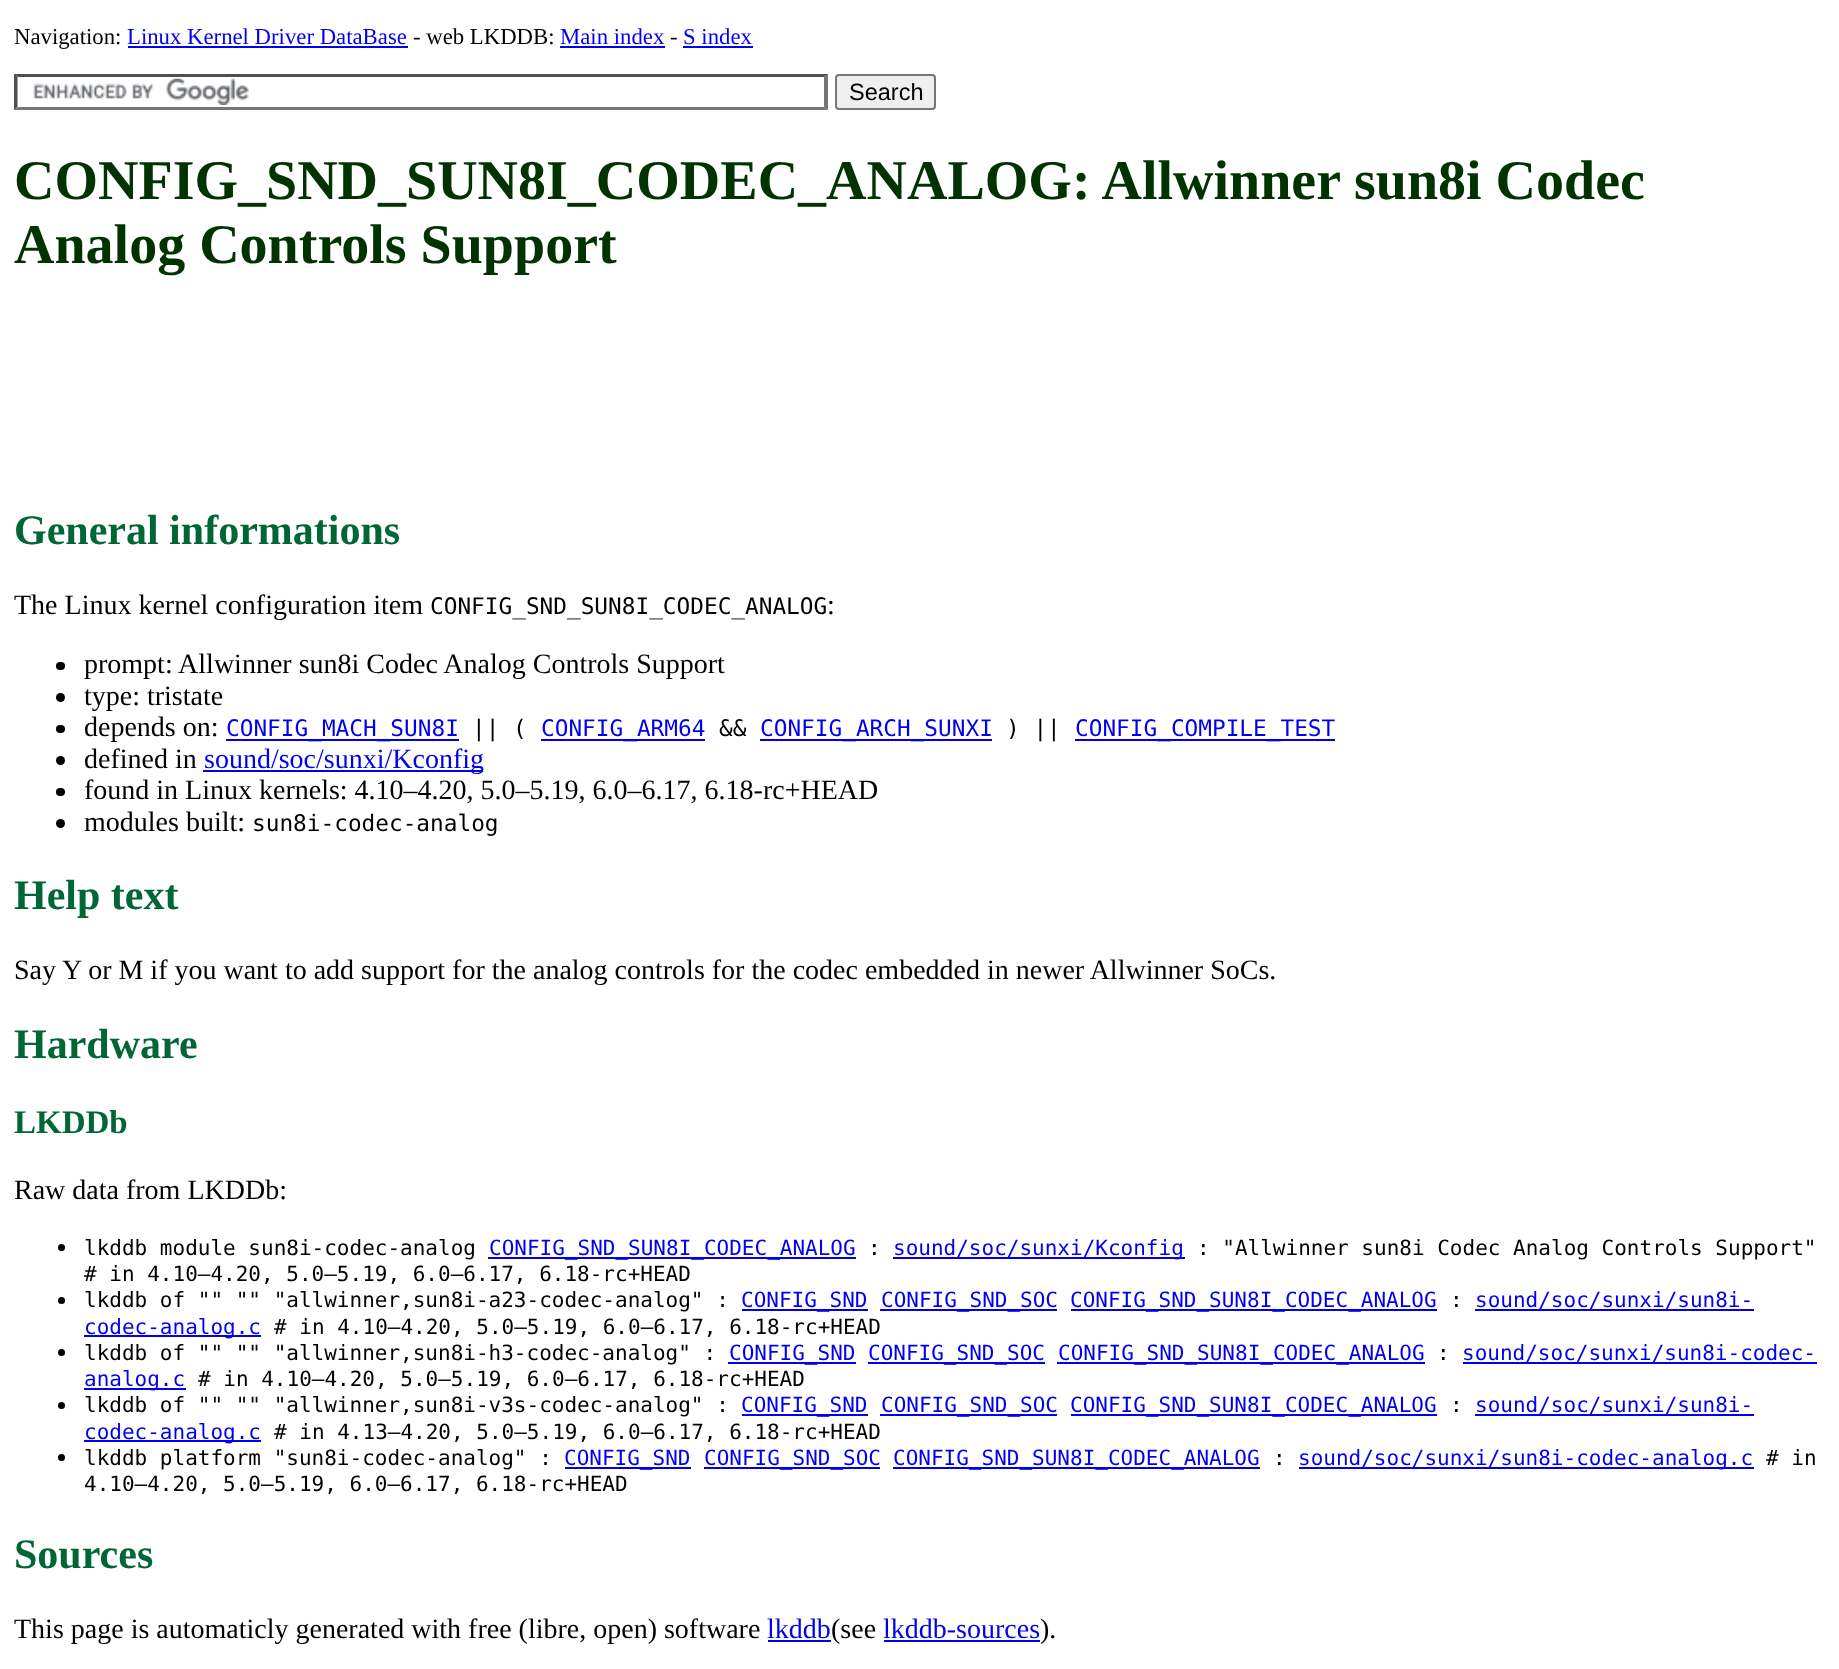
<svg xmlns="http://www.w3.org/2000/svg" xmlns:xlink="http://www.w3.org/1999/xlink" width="1839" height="1669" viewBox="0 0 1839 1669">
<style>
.cls-1{font:22.75px Liberation Serif;fill:#000000}
.cls-2{font:22.75px Liberation Serif;fill:#0000ee}
.cls-3{font:23.5px Liberation Sans;fill:#000000}
.cls-4{font:bold 56px Liberation Serif;fill:#003300}
.cls-5{font:bold 42px Liberation Serif;fill:#006633}
.cls-6{font:28px Liberation Serif;fill:#000000}
.cls-7{font:22.75px DejaVu Sans Mono;fill:#000000}
.cls-8{font:22.75px DejaVu Sans Mono;fill:#0000ee}
.cls-9{font:28px Liberation Serif;fill:#0000ee}
.cls-10{font:bold 33px Liberation Serif;fill:#006633}
.cls-11{font:21px DejaVu Sans Mono;fill:#000000}
.cls-12{font:21px DejaVu Sans Mono;fill:#0000ee}
</style>
<rect width="100%" height="100%" fill="#ffffff"/>
<rect fill="#0000ee" x="128" y="46" width="280" height="2"/>
<rect fill="#0000ee" x="560" y="46" width="105" height="2"/>
<rect fill="#0000ee" x="683" y="46" width="70" height="2"/>
<image xlink:href="image0.png" x="33" y="78" width="216" height="27"/>
<path fill="#4f4f4f" d="M14 74H828L824 77H18Z"/>
<path fill="#767676" d="M828 73.5V110L824 107V77Z"/>
<path fill="#767676" d="M828 110H14L18 107H824Z"/>
<path fill="#4f4f4f" d="M14 110V73.5L17.5 77V107Z"/>
<rect fill="#efefef" stroke="#767676" stroke-width="2" x="836" y="75" width="99" height="34" rx="3"/>
<rect fill="#000000" x="56" y="662" width="9" height="8" rx="4"/>
<circle fill="#000000" cx="60.5" cy="697.5" r="4.5"/>
<rect fill="#000000" x="56" y="725" width="9" height="8" rx="4"/>
<rect fill="#0000ee" x="226" y="739" width="233" height="2"/>
<rect fill="#0000ee" x="541" y="739" width="164" height="2"/>
<rect fill="#0000ee" x="760" y="739" width="232" height="2"/>
<rect fill="#0000ee" x="1075" y="739" width="260" height="2"/>
<circle fill="#000000" cx="60.5" cy="760.5" r="4.5"/>
<rect fill="#0000ee" x="203" y="770" width="280" height="2"/>
<rect fill="#000000" x="56" y="788" width="9" height="8" rx="4"/>
<circle fill="#000000" cx="60.5" cy="823.5" r="4.5"/>
<circle fill="#000000" cx="61.5" cy="1247.5" r="3.5"/>
<rect fill="#0000ee" x="488" y="1257" width="368" height="2"/>
<rect fill="#0000ee" x="893" y="1257" width="292" height="2"/>
<circle fill="#000000" cx="61.5" cy="1300.5" r="3.5"/>
<rect fill="#0000ee" x="742" y="1309" width="126" height="2"/>
<rect fill="#0000ee" x="880" y="1309" width="177" height="2"/>
<rect fill="#0000ee" x="1071" y="1309" width="366" height="2"/>
<rect fill="#0000ee" x="1475" y="1309" width="279" height="2"/>
<rect fill="#0000ee" x="84" y="1335" width="177" height="2"/>
<circle fill="#000000" cx="61.5" cy="1352.5" r="3.5"/>
<rect fill="#0000ee" x="728" y="1362" width="128" height="2"/>
<rect fill="#0000ee" x="868" y="1362" width="177" height="2"/>
<rect fill="#0000ee" x="1057" y="1362" width="368" height="2"/>
<rect fill="#0000ee" x="1463" y="1362" width="354" height="2"/>
<rect fill="#0000ee" x="84" y="1388" width="102" height="2"/>
<circle fill="#000000" cx="61.5" cy="1405.5" r="3.5"/>
<rect fill="#0000ee" x="742" y="1414" width="126" height="2"/>
<rect fill="#0000ee" x="880" y="1414" width="177" height="2"/>
<rect fill="#0000ee" x="1071" y="1414" width="366" height="2"/>
<rect fill="#0000ee" x="1475" y="1414" width="279" height="2"/>
<rect fill="#0000ee" x="84" y="1440" width="177" height="2"/>
<circle fill="#000000" cx="61.5" cy="1457.5" r="3.5"/>
<rect fill="#0000ee" x="565" y="1467" width="126" height="2"/>
<rect fill="#0000ee" x="704" y="1467" width="176" height="2"/>
<rect fill="#0000ee" x="893" y="1467" width="367" height="2"/>
<rect fill="#0000ee" x="1299" y="1467" width="455" height="2"/>
<rect fill="#0000ee" x="768" y="1640" width="63" height="2"/>
<rect fill="#0000ee" x="884" y="1640" width="156" height="2"/>
<text class="cls-1" x="14" y="44">Navigation:</text>
<text class="cls-2" x="127" y="44">Linux Kernel Driver DataBase</text>
<text class="cls-1" x="413" y="44">- web LKDDB:</text>
<text class="cls-2" x="560" y="44">Main index</text>
<text class="cls-1" x="670" y="44">-</text>
<text class="cls-2" x="683" y="44">S index</text>
<text class="cls-3" x="849" y="100">Search</text>
<text class="cls-4"><tspan x="14" y="199">CONFIG_SND_SUN8I_CODEC_ANALOG: Allwinner sun8i Codec</tspan><tspan x="14" y="263">Analog Controls Support</tspan></text>
<text class="cls-5" x="14" y="544">General informations</text>
<text class="cls-6" x="14" y="614">The Linux kernel configuration item</text>
<text class="cls-7" x="430" y="614">CONFIG_SND_SUN8I_CODEC_ANALOG</text>
<text class="cls-6" x="827" y="614">:</text>
<text class="cls-6"><tspan x="84" y="673">prompt: Allwinner sun8i Codec Analog Controls Support</tspan><tspan x="84" y="705">type: tristate</tspan><tspan x="84" y="736">depends on:</tspan></text>
<text class="cls-8" x="226" y="736">CONFIG_MACH_SUN8I</text>
<text class="cls-7" x="472" y="736">|| (</text>
<text class="cls-8" x="541" y="736">CONFIG_ARM64</text>
<text class="cls-7" x="719" y="736">&amp;&amp;</text>
<text class="cls-8" x="760" y="736">CONFIG_ARCH_SUNXI</text>
<text class="cls-7" x="1006" y="736">) ||</text>
<text class="cls-8" x="1075" y="736">CONFIG_COMPILE_TEST</text>
<text class="cls-6" x="84" y="768">defined in</text>
<text class="cls-9" x="204" y="768">sound/soc/sunxi/Kconfig</text>
<text class="cls-6"><tspan x="84" y="799">found in Linux kernels: 4.10–4.20, 5.0–5.19, 6.0–6.17, 6.18-rc+HEAD</tspan><tspan x="84" y="831">modules built:</tspan></text>
<text class="cls-7" x="252" y="831">sun8i-codec-analog</text>
<text class="cls-5" x="14" y="909">Help text</text>
<text class="cls-6" x="14" y="979">Say Y or M if you want to add support for the analog controls for the codec embedded in newer Allwinner SoCs.</text>
<text class="cls-5" x="14" y="1058">Hardware</text>
<text class="cls-10" x="14" y="1133">LKDDb</text>
<text class="cls-6" x="14" y="1199">Raw data from LKDDb:</text>
<text class="cls-11" x="84" y="1255">lkddb module sun8i-codec-analog</text>
<text class="cls-12" x="489" y="1255">CONFIG_SND_SUN8I_CODEC_ANALOG</text>
<text class="cls-11" x="868" y="1255">:</text>
<text class="cls-12" x="893" y="1255">sound/soc/sunxi/Kconfig</text>
<text class="cls-11" x="1197" y="1255">: "Allwinner sun8i Codec Analog Controls Support"</text>
<text class="cls-11"><tspan x="84" y="1281"># in 4.10–4.20, 5.0–5.19, 6.0–6.17, 6.18-rc+HEAD</tspan><tspan x="84" y="1307">lkddb of "" "" "allwinner,sun8i-a23-codec-analog" :</tspan></text>
<text class="cls-12" x="741" y="1307">CONFIG_SND</text>
<text class="cls-12" x="881" y="1307">CONFIG_SND_SOC</text>
<text class="cls-12" x="1070" y="1307">CONFIG_SND_SUN8I_CODEC_ANALOG</text>
<text class="cls-11" x="1450" y="1307">:</text>
<text class="cls-12" x="1475" y="1307">sound/soc/sunxi/sun8i-</text>
<text class="cls-12" x="84" y="1334">codec-analog.c</text>
<text class="cls-11" x="274" y="1334"># in 4.10–4.20, 5.0–5.19, 6.0–6.17, 6.18-rc+HEAD</text>
<text class="cls-11" x="84" y="1360">lkddb of "" "" "allwinner,sun8i-h3-codec-analog" :</text>
<text class="cls-12" x="729" y="1360">CONFIG_SND</text>
<text class="cls-12" x="868" y="1360">CONFIG_SND_SOC</text>
<text class="cls-12" x="1058" y="1360">CONFIG_SND_SUN8I_CODEC_ANALOG</text>
<text class="cls-11" x="1437" y="1360">:</text>
<text class="cls-12" x="1462" y="1360">sound/soc/sunxi/sun8i-codec-</text>
<text class="cls-12" x="84" y="1386">analog.c</text>
<text class="cls-11" x="198" y="1386"># in 4.10–4.20, 5.0–5.19, 6.0–6.17, 6.18-rc+HEAD</text>
<text class="cls-11" x="84" y="1412">lkddb of "" "" "allwinner,sun8i-v3s-codec-analog" :</text>
<text class="cls-12" x="741" y="1412">CONFIG_SND</text>
<text class="cls-12" x="881" y="1412">CONFIG_SND_SOC</text>
<text class="cls-12" x="1070" y="1412">CONFIG_SND_SUN8I_CODEC_ANALOG</text>
<text class="cls-11" x="1450" y="1412">:</text>
<text class="cls-12" x="1475" y="1412">sound/soc/sunxi/sun8i-</text>
<text class="cls-12" x="84" y="1439">codec-analog.c</text>
<text class="cls-11" x="274" y="1439"># in 4.13–4.20, 5.0–5.19, 6.0–6.17, 6.18-rc+HEAD</text>
<text class="cls-11" x="84" y="1465">lkddb platform "sun8i-codec-analog" :</text>
<text class="cls-12" x="564" y="1465">CONFIG_SND</text>
<text class="cls-12" x="704" y="1465">CONFIG_SND_SOC</text>
<text class="cls-12" x="893" y="1465">CONFIG_SND_SUN8I_CODEC_ANALOG</text>
<text class="cls-11" x="1273" y="1465">:</text>
<text class="cls-12" x="1298" y="1465">sound/soc/sunxi/sun8i-codec-analog.c</text>
<text class="cls-11" x="1766" y="1465"># in</text>
<text class="cls-11" x="84" y="1491">4.10–4.20, 5.0–5.19, 6.0–6.17, 6.18-rc+HEAD</text>
<text class="cls-5" x="14" y="1568">Sources</text>
<text class="cls-6" x="14" y="1638">This page is automaticly generated with free (libre, open) software</text>
<text class="cls-9" x="767" y="1638">lkddb</text>
<text class="cls-6" x="831" y="1638">(see</text>
<text class="cls-9" x="883" y="1638">lkddb-sources</text>
<text class="cls-6" x="1040" y="1638">).</text>
</svg>
